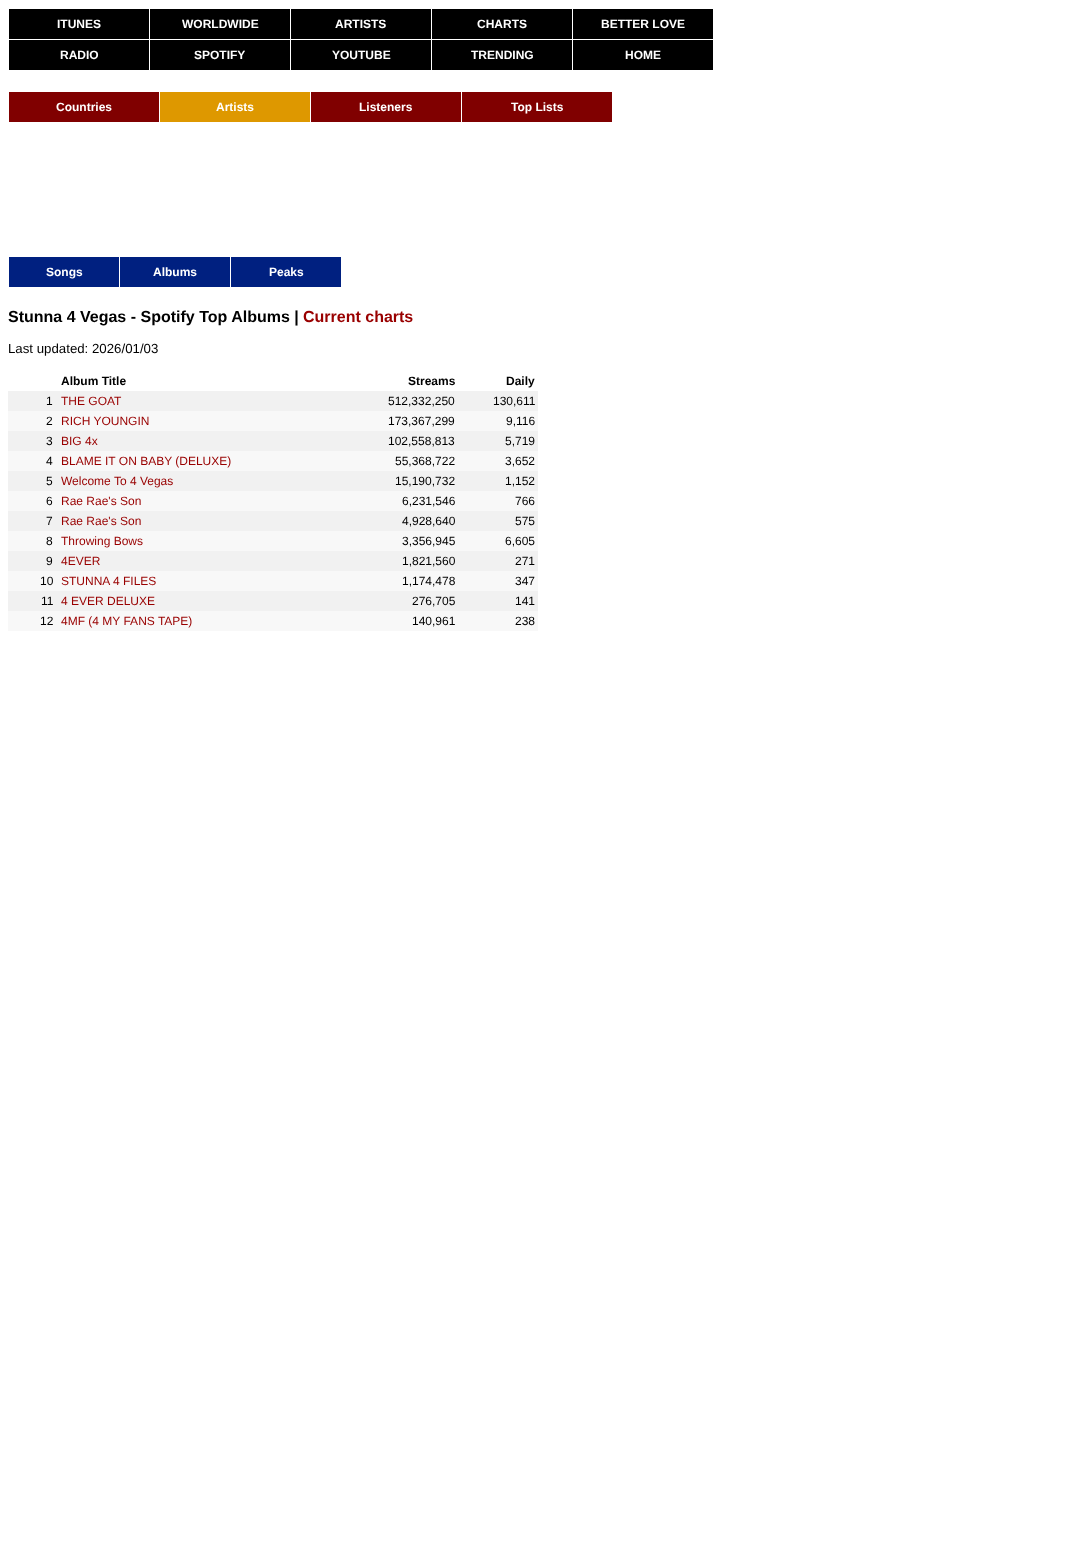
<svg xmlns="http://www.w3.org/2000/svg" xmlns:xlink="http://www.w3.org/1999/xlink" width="1066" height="1559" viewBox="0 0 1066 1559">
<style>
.cls-1{font:bold 12px Liberation Sans;fill:#ffffff}
.cls-2{font:bold 16px Liberation Sans;fill:#000000}
.cls-3{font:bold 16px Liberation Sans;fill:#990000}
.cls-4{font:13.25px Liberation Sans;fill:#000000}
.cls-5{font:bold 12px Liberation Sans;fill:#000000}
.cls-6{font:12px Liberation Sans;fill:#000000}
.cls-7{font:12px Liberation Sans;fill:#990000}
</style>
<rect width="100%" height="100%" fill="#ffffff"/>
<rect fill="#000000" x="9" y="9" width="140" height="30"/>
<rect fill="#000000" x="150" y="9" width="140" height="30"/>
<rect fill="#000000" x="291" y="9" width="140" height="30"/>
<rect fill="#000000" x="432" y="9" width="140" height="30"/>
<rect fill="#000000" x="573" y="9" width="140" height="30"/>
<rect fill="#000000" x="9" y="40" width="140" height="30"/>
<rect fill="#000000" x="150" y="40" width="140" height="30"/>
<rect fill="#000000" x="291" y="40" width="140" height="30"/>
<rect fill="#000000" x="432" y="40" width="140" height="30"/>
<rect fill="#000000" x="573" y="40" width="140" height="30"/>
<rect fill="#800000" x="9" y="92" width="150" height="30"/>
<rect fill="#de9800" x="160" y="92" width="150" height="30"/>
<rect fill="#800000" x="311" y="92" width="150" height="30"/>
<rect fill="#800000" x="462" y="92" width="150" height="30"/>
<rect fill="#002080" x="9" y="257" width="110" height="30"/>
<rect fill="#002080" x="120" y="257" width="110" height="30"/>
<rect fill="#002080" x="231" y="257" width="110" height="30"/>
<rect fill="#f1f1f1" x="8" y="391" width="530" height="20"/>
<rect fill="#f8f8f8" x="8" y="411" width="530" height="20"/>
<rect fill="#f1f1f1" x="8" y="431" width="530" height="20"/>
<rect fill="#f8f8f8" x="8" y="451" width="530" height="20"/>
<rect fill="#f1f1f1" x="8" y="471" width="530" height="20"/>
<rect fill="#f8f8f8" x="8" y="491" width="530" height="20"/>
<rect fill="#f1f1f1" x="8" y="511" width="530" height="20"/>
<rect fill="#f8f8f8" x="8" y="531" width="530" height="20"/>
<rect fill="#f1f1f1" x="8" y="551" width="530" height="20"/>
<rect fill="#f8f8f8" x="8" y="571" width="530" height="20"/>
<rect fill="#f1f1f1" x="8" y="591" width="530" height="20"/>
<rect fill="#f8f8f8" x="8" y="611" width="530" height="20"/>
<text class="cls-1" x="57" y="28">ITUNES</text>
<text class="cls-1" x="182" y="28">WORLDWIDE</text>
<text class="cls-1" x="335" y="28">ARTISTS</text>
<text class="cls-1" x="477" y="28">CHARTS</text>
<text class="cls-1" x="601" y="28">BETTER LOVE</text>
<text class="cls-1" x="60" y="59">RADIO</text>
<text class="cls-1" x="194" y="59">SPOTIFY</text>
<text class="cls-1" x="332" y="59">YOUTUBE</text>
<text class="cls-1" x="471" y="59">TRENDING</text>
<text class="cls-1" x="625" y="59">HOME</text>
<text class="cls-1" x="56" y="111">Countries</text>
<text class="cls-1" x="216" y="111">Artists</text>
<text class="cls-1" x="359" y="111">Listeners</text>
<text class="cls-1" x="511" y="111">Top Lists</text>
<text class="cls-1" x="46" y="276">Songs</text>
<text class="cls-1" x="153" y="276">Albums</text>
<text class="cls-1" x="269" y="276">Peaks</text>
<text class="cls-2" x="8" y="322">Stunna 4 Vegas - Spotify Top Albums |</text>
<text class="cls-3" x="303" y="322">Current charts</text>
<text class="cls-4" x="8" y="353">Last updated: 2026/01/03</text>
<text class="cls-5" x="61" y="385">Album Title</text>
<text class="cls-5" x="408" y="385">Streams</text>
<text class="cls-5" x="506" y="385">Daily</text>
<text class="cls-6" x="46" y="405">1</text>
<text class="cls-7" x="61" y="405">THE GOAT</text>
<text class="cls-6" x="388" y="405">512,332,250</text>
<text class="cls-6" x="493" y="405">130,611</text>
<text class="cls-6" x="46" y="425">2</text>
<text class="cls-7" x="61" y="425">RICH YOUNGIN</text>
<text class="cls-6" x="388" y="425">173,367,299</text>
<text class="cls-6" x="506" y="425">9,116</text>
<text class="cls-6" x="46" y="445">3</text>
<text class="cls-7" x="61" y="445">BIG 4x</text>
<text class="cls-6" x="388" y="445">102,558,813</text>
<text class="cls-6" x="505" y="445">5,719</text>
<text class="cls-6" x="46" y="465">4</text>
<text class="cls-7" x="61" y="465">BLAME IT ON BABY (DELUXE)</text>
<text class="cls-6" x="395" y="465">55,368,722</text>
<text class="cls-6" x="505" y="465">3,652</text>
<text class="cls-6" x="46" y="485">5</text>
<text class="cls-7" x="61" y="485">Welcome To 4 Vegas</text>
<text class="cls-6" x="395" y="485">15,190,732</text>
<text class="cls-6" x="505" y="485">1,152</text>
<text class="cls-6" x="46" y="505">6</text>
<text class="cls-7" x="61" y="505">Rae Rae's Son</text>
<text class="cls-6" x="402" y="505">6,231,546</text>
<text class="cls-6" x="515" y="505">766</text>
<text class="cls-6" x="46" y="525">7</text>
<text class="cls-7" x="61" y="525">Rae Rae's Son</text>
<text class="cls-6" x="402" y="525">4,928,640</text>
<text class="cls-6" x="515" y="525">575</text>
<text class="cls-6" x="46" y="545">8</text>
<text class="cls-7" x="61" y="545">Throwing Bows</text>
<text class="cls-6" x="402" y="545">3,356,945</text>
<text class="cls-6" x="505" y="545">6,605</text>
<text class="cls-6" x="46" y="565">9</text>
<text class="cls-7" x="61" y="565">4EVER</text>
<text class="cls-6" x="402" y="565">1,821,560</text>
<text class="cls-6" x="515" y="565">271</text>
<text class="cls-6" x="40" y="585">10</text>
<text class="cls-7" x="61" y="585">STUNNA 4 FILES</text>
<text class="cls-6" x="402" y="585">1,174,478</text>
<text class="cls-6" x="515" y="585">347</text>
<text class="cls-6" x="41" y="605">11</text>
<text class="cls-7" x="61" y="605">4 EVER DELUXE</text>
<text class="cls-6" x="412" y="605">276,705</text>
<text class="cls-6" x="515" y="605">141</text>
<text class="cls-6" x="40" y="625">12</text>
<text class="cls-7" x="61" y="625">4MF (4 MY FANS TAPE)</text>
<text class="cls-6" x="412" y="625">140,961</text>
<text class="cls-6" x="515" y="625">238</text>
</svg>
